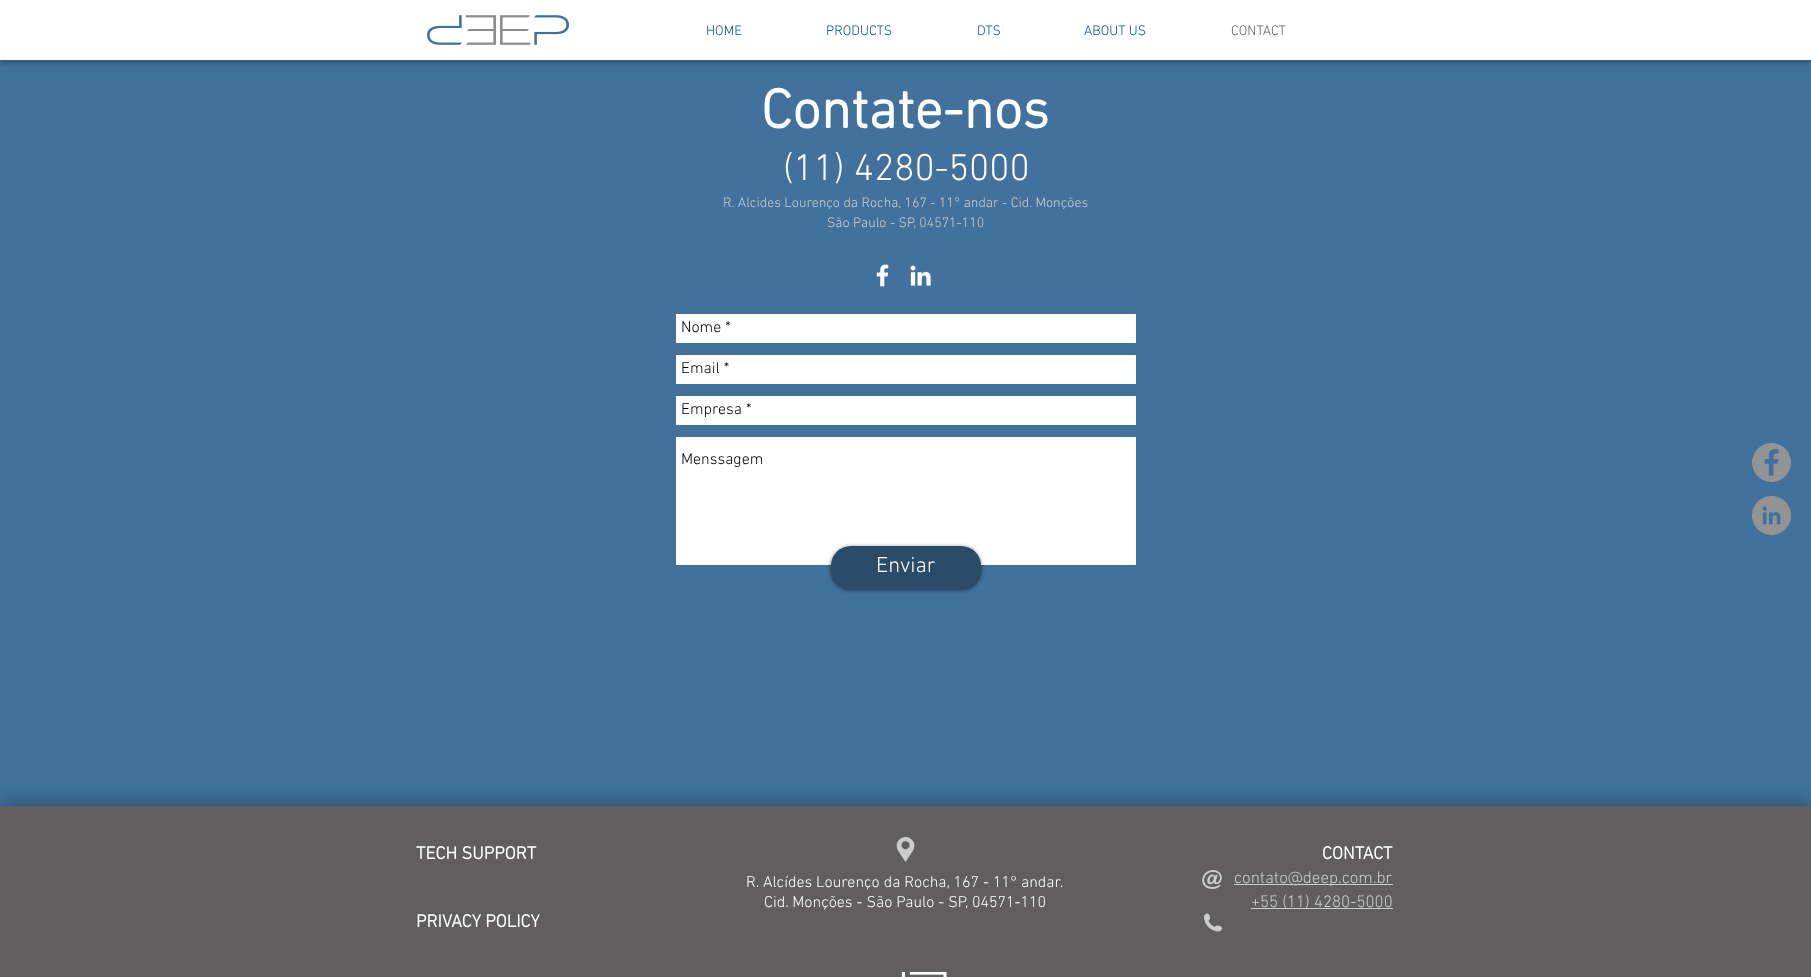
<svg xmlns="http://www.w3.org/2000/svg" xmlns:xlink="http://www.w3.org/1999/xlink" width="1811" height="977" viewBox="0 0 1811 977">
<style>
.cls-1{font:300 14px 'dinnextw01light';fill:#045184}
.cls-2{font:300 14px 'dinnextw01light';fill:#605e5e}
.cls-3{font:bold 56px 'dinnextw01light';fill:#ffffff}
.cls-4{font:300 38px 'dinnextw01light';fill:#ffffff}
.cls-5{font:300 14px 'dinnextw01light';fill:#cccccc}
.cls-6{font:300 16px 'dinnextw01light';fill:#000000}
.cls-7{font:300 22px 'dinnextw01light';fill:#ffffff}
.cls-8{font:bold 18px 'dinnextw01light';fill:#ffffff}
.cls-9{font:300 16px 'dinnextw01light';fill:#ffffff}
.cls-10{font:300 17px 'dinnextw01light';fill:#cccccc}
</style>
<rect width="100%" height="100%" fill="#41719c"/>
<rect fill="#000000" fill-opacity="0.26" filter="blur(2.5px)" x="0" y="3" width="1811" height="60"/>
<rect fill="#ffffff" x="0" y="0" width="1811" height="60"/>
<image xlink:href="image0.png" x="427" y="15" width="142" height="30"/>
<image xlink:href="image1.png" x="876" y="264" width="13" height="23"/>
<image xlink:href="image2.png" x="910" y="265" width="21" height="21"/>
<rect fill="#ffffff" x="676" y="314" width="460" height="29"/>
<rect fill="#ffffff" x="676" y="355" width="460" height="29"/>
<rect fill="#ffffff" x="676" y="396" width="460" height="29"/>
<rect fill="#ffffff" x="676" y="437" width="460" height="128"/>
<rect fill="#000000" fill-opacity="0.6" filter="blur(2px)" x="831" y="547" width="150" height="43" rx="20"/>
<rect fill="#2b4c69" x="831" y="546" width="150" height="43" rx="20"/>
<image xlink:href="image3.png" x="1752" y="443" width="39" height="39"/>
<image xlink:href="image4.png" x="1752" y="496" width="39" height="39"/>
<rect fill="#000000" fill-opacity="0.41" filter="blur(10px)" x="0" y="806" width="1811" height="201"/>
<rect fill="#605e5e" x="0" y="806" width="1811" height="171"/>
<image xlink:href="image5.png" x="896" y="837" width="19" height="25"/>
<image xlink:href="image6.png" x="1202" y="870" width="20" height="19"/>
<rect fill="#cccccc" x="1234" y="884" width="159" height="1"/>
<rect fill="#cccccc" x="1251" y="908" width="142" height="1"/>
<image xlink:href="image7.png" x="1204" y="913" width="18" height="19"/>
<image xlink:href="image8.png" x="901" y="972" width="46" height="5"/>
<text class="cls-1" x="706" y="35">HOME</text>
<text class="cls-1" x="826" y="35">PRODUCTS</text>
<text class="cls-1" x="977" y="35">DTS</text>
<text class="cls-1" x="1084" y="35">ABOUT US</text>
<text class="cls-2" x="1231" y="35">CONTACT</text>
<text class="cls-3" x="761" y="128">Contate-nos</text>
<text class="cls-4" x="783" y="180">(11) 4280-5000</text>
<text class="cls-5" x="723" y="207">R. Alcides Lourenço da Rocha, 167 - 11° andar - Cid. Monções</text>
<text class="cls-5" x="827" y="227">São Paulo - SP, 04571-110</text>
<text class="cls-6" x="681" y="332">Nome *</text>
<text class="cls-6" x="681" y="373">Email *</text>
<text class="cls-6" x="681" y="414">Empresa *</text>
<text class="cls-6" x="681" y="464">Menssagem</text>
<text class="cls-7" x="876" y="572">Enviar</text>
<text class="cls-8" x="416" y="859">TECH SUPPORT</text>
<text class="cls-8" x="1322" y="859">CONTACT</text>
<text class="cls-9" x="746" y="887">R. Alcídes Lourenço da Rocha, 167 - 11° andar.</text>
<text class="cls-9" x="764" y="907">Cid. Monções - São Paulo - SP, 04571-110</text>
<text class="cls-10" x="1234" y="883">contato@deep.com.br</text>
<text class="cls-10" x="1251" y="907">+55 (11) 4280-5000</text>
<text class="cls-8" x="416" y="927">PRIVACY POLICY</text>
</svg>
